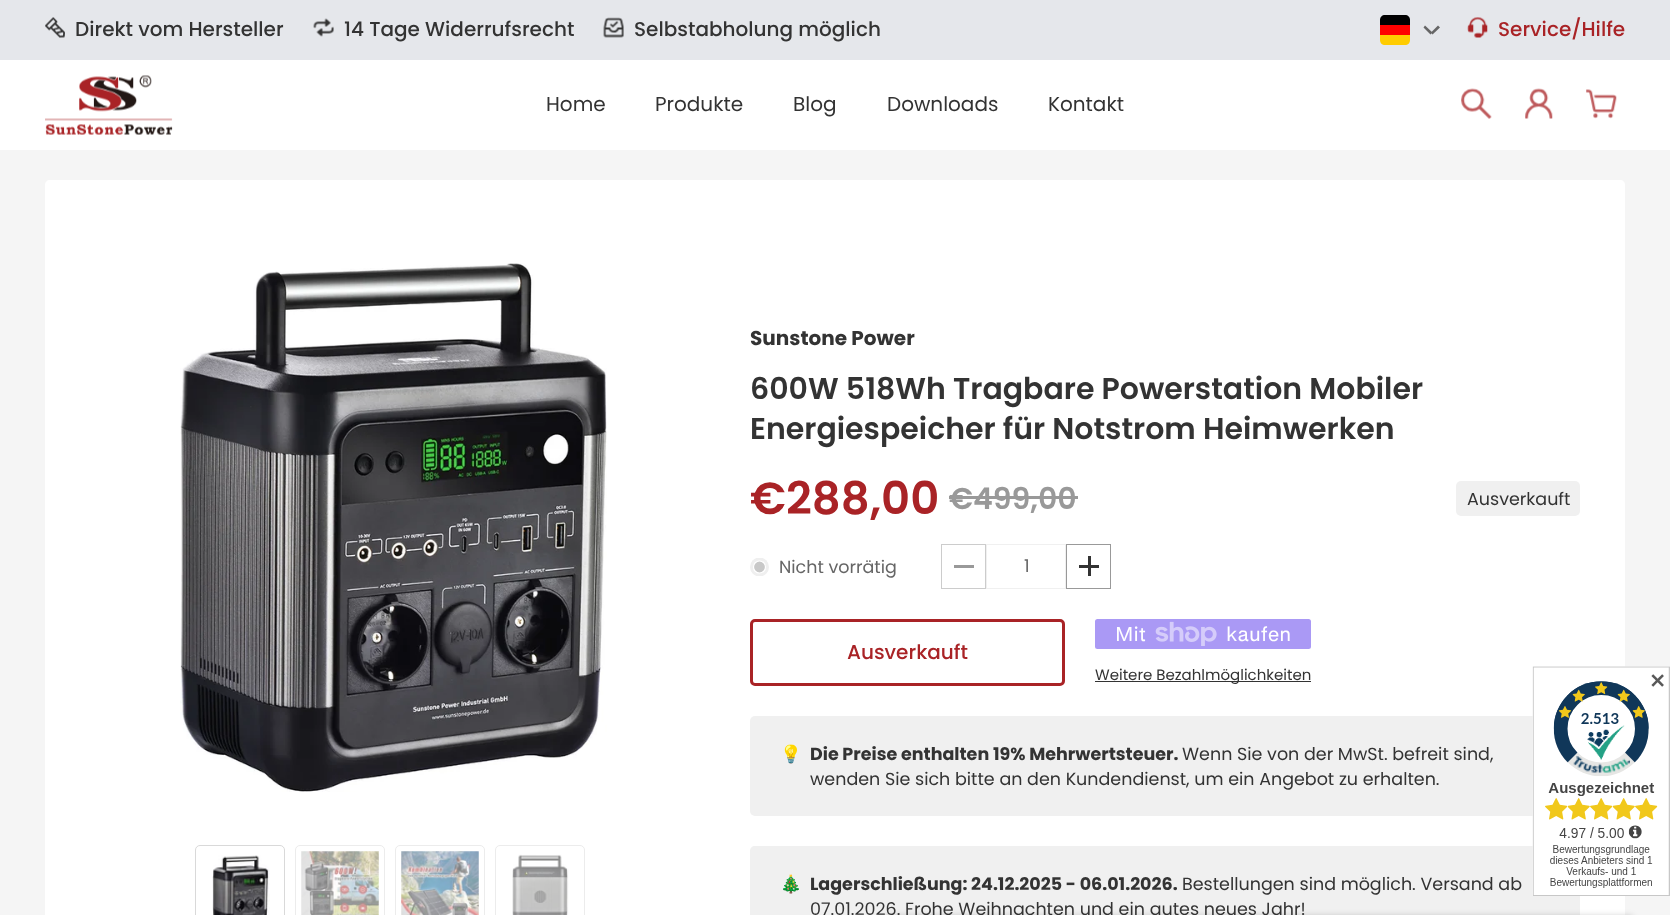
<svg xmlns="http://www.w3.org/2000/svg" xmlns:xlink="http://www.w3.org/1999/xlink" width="1670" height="915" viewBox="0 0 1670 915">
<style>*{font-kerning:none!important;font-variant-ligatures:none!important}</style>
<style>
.cls-1{font:500 20px Poppins;fill:#333333}
.cls-2{font:500 20px Poppins;fill:#a92326}
.cls-3{font:20px Poppins;fill:#333333}
.cls-4{font:bold 20px Poppins;fill:#333333}
.cls-5{font:600 30px Poppins;fill:#333333}
.cls-6{font:600 45px Poppins;fill:#a92326}
.cls-7{font:600 30px Poppins;fill:#999999}
.cls-8{font:17.5px Poppins;fill:#333333}
.cls-9{font:17.5px Poppins;fill:#666666}
.cls-10{font:20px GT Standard;fill:#ffffff}
.cls-11{font:15px Poppins;fill:#333333}
.cls-12{font:17.5px Noto Color Emoji;fill:#333333}
.cls-13{font:bold 17.5px Poppins;fill:#333333}
.cls-14{font:bold 20px DejaVu Sans;fill:#595959}
</style>
<defs>
<clipPath id="clip1"><rect x="750" y="558" width="19" height="18"/></clipPath>
</defs>
<rect width="100%" height="100%" fill="#f5f5f5"/>
<rect fill="#e5e7eb" x="0" y="0" width="1670" height="60"/>
<image xlink:href="image0.png" x="45" y="17" width="20" height="21"/>
<image xlink:href="image1.png" x="313" y="18" width="21" height="19"/>
<image xlink:href="image2.png" x="603" y="17" width="21" height="21"/>
<path fill="#ffcc00" d="M1380 35H1410V40C1410 43 1408 45 1405 45H1385C1382 45 1380 43 1380 40Z"/>
<path fill="#000001" d="M1385 15H1405C1408 15 1410 17 1410 20V25H1380V20C1380 17 1382 15 1385 15Z"/>
<rect fill="#ff0000" x="1380" y="25" width="30" height="10"/>
<path fill="#666666" d="M1431 32.5L1438 25.5L1440 27.5L1432.5 34.5Z"/>
<path fill="#666666" d="M1425 25.5L1432.5 32.5L1430.5 34.5L1423.5 27.5Z"/>
<image xlink:href="image3.png" x="1467" y="17" width="21" height="21"/>
<rect fill="#ffffff" x="0" y="60" width="1670" height="90"/>
<image xlink:href="image4.png" x="45" y="75" width="128" height="60"/>
<image xlink:href="image5.png" x="1461" y="88" width="31" height="31"/>
<image xlink:href="image6.png" x="1525" y="88" width="28" height="31"/>
<image xlink:href="image7.png" x="1586" y="89" width="31" height="30"/>
<path fill="#ffffff" d="M50 180H1620C1623 180 1625 182 1625 185V915H45V185C45 182 47 180 50 180Z"/>
<image xlink:href="image8.png" x="180" y="263" width="427" height="529"/>
<rect fill="none" stroke="#d9d9d9" x="195.5" y="845.5" width="89" height="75" rx="4.5"/>
<image xlink:href="image9.png" x="212" y="855" width="58" height="60"/>
<rect fill="none" stroke="#ececec" x="295.5" y="845.5" width="89" height="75" rx="4.5"/>
<image xlink:href="image10.png" x="301" y="851" width="78" height="64"/>
<rect fill="none" stroke="#ececec" x="395.5" y="845.5" width="89" height="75" rx="4.5"/>
<image xlink:href="image11.png" x="401" y="851" width="78" height="64"/>
<rect fill="none" stroke="#ececec" x="495.5" y="845.5" width="89" height="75" rx="4.5"/>
<image xlink:href="image12.png" x="512" y="854" width="57" height="61"/>
<rect fill="#999999" x="949" y="496" width="129" height="3"/>
<rect fill="#f0f0f0" x="1456" y="481" width="124" height="35" rx="5"/>
<g clip-path="url(#clip1)">
<circle fill="#efefef" cx="759.5" cy="567" r="9.5"/>
</g>
<circle fill="#c8c8c8" stroke="#ffffff" stroke-width="1.2" cx="759.5" cy="567" r="6"/>
<rect fill="none" stroke="#cccccc" x="941.5" y="544.5" width="44" height="44"/>
<rect fill="#999999" x="954" y="565" width="20" height="3"/>
<rect fill="none" stroke="#f0f0f0" x="986.5" y="544.5" width="79" height="44"/>
<rect fill="none" stroke="#999999" x="1066.5" y="544.5" width="44" height="44"/>
<rect fill="#333333" x="1079" y="565" width="20" height="3"/>
<rect fill="#333333" x="1088" y="556" width="3" height="20"/>
<rect fill="none" stroke="#a92326" stroke-width="3" x="751.5" y="620.5" width="312" height="64" rx="3.5"/>
<rect fill="#aa99f5" x="1095" y="619" width="216" height="30" rx="2.5"/>
<image xlink:href="image13.png" x="1155" y="621" width="62" height="25"/>
<rect fill="#333333" x="1095" y="681" width="216" height="1"/>
<rect fill="#f0f0f0" x="750" y="716" width="830" height="100" rx="5"/>
<path fill="#f0f0f0" d="M755 846H1575C1578 846 1580 848 1580 851V915H750V851C750 848 752 846 755 846Z"/>
<image xlink:href="image14.png" x="1532" y="666" width="138" height="230"/>
<rect fill="#000000" fill-opacity="0.2" filter="blur(3px)" x="883" y="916" width="750" height="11" rx="2.5"/>
<text class="cls-1" x="75" y="36">Direkt vom Hersteller</text>
<text class="cls-1" x="344" y="36">14 Tage Widerrufsrecht</text>
<text class="cls-1" x="634" y="36">Selbstabholung möglich</text>
<text class="cls-2" x="1498" y="36">Service/Hilfe</text>
<text class="cls-3" x="546" y="111">Home</text>
<text class="cls-3" x="655" y="111">Produkte</text>
<text class="cls-3" x="793" y="111">Blog</text>
<text class="cls-3" x="887" y="111">Downloads</text>
<text class="cls-3" x="1048" y="111">Kontakt</text>
<text class="cls-4" x="750" y="345">Sunstone Power</text>
<text class="cls-5"><tspan x="750" y="399">600W 518Wh Tragbare Powerstation Mobiler</tspan><tspan x="750" y="439">Energiespeicher für Notstrom Heimwerken</tspan></text>
<text class="cls-6" x="750" y="514">€288,00</text>
<text class="cls-7" x="949" y="509">€499,00</text>
<text class="cls-8" x="1467" y="505">Ausverkauft</text>
<text class="cls-9" x="779" y="573">Nicht vorrätig</text>
<text class="cls-9" x="1024" y="572">1</text>
<text class="cls-2" x="847" y="659">Ausverkauft</text>
<text class="cls-10" x="1115" y="641">Mit</text>
<text class="cls-10" x="1226" y="641">kaufen</text>
<text class="cls-11" x="1095" y="680">Weitere Bezahlmöglichkeiten</text>
<text class="cls-12" x="780" y="760">💡</text>
<text class="cls-13" x="810" y="760">Die Preise enthalten 19% Mehrwertsteuer.</text>
<text class="cls-8" x="1182" y="760">Wenn Sie von der MwSt. befreit sind,</text>
<text class="cls-8" x="810" y="785">wenden Sie sich bitte an den Kundendienst, um ein Angebot zu erhalten.</text>
<text class="cls-12" x="780" y="890">🎄</text>
<text class="cls-13" x="810" y="890">Lagerschließung: 24.12.2025 - 06.01.2026.</text>
<text class="cls-8" x="1182" y="890">Bestellungen sind möglich. Versand ab</text>
<text class="cls-8" x="810" y="915">07.01.2026. Frohe Weihnachten und ein gutes neues Jahr!</text>
<text class="cls-14" x="1649" y="688">✕</text>
</svg>
